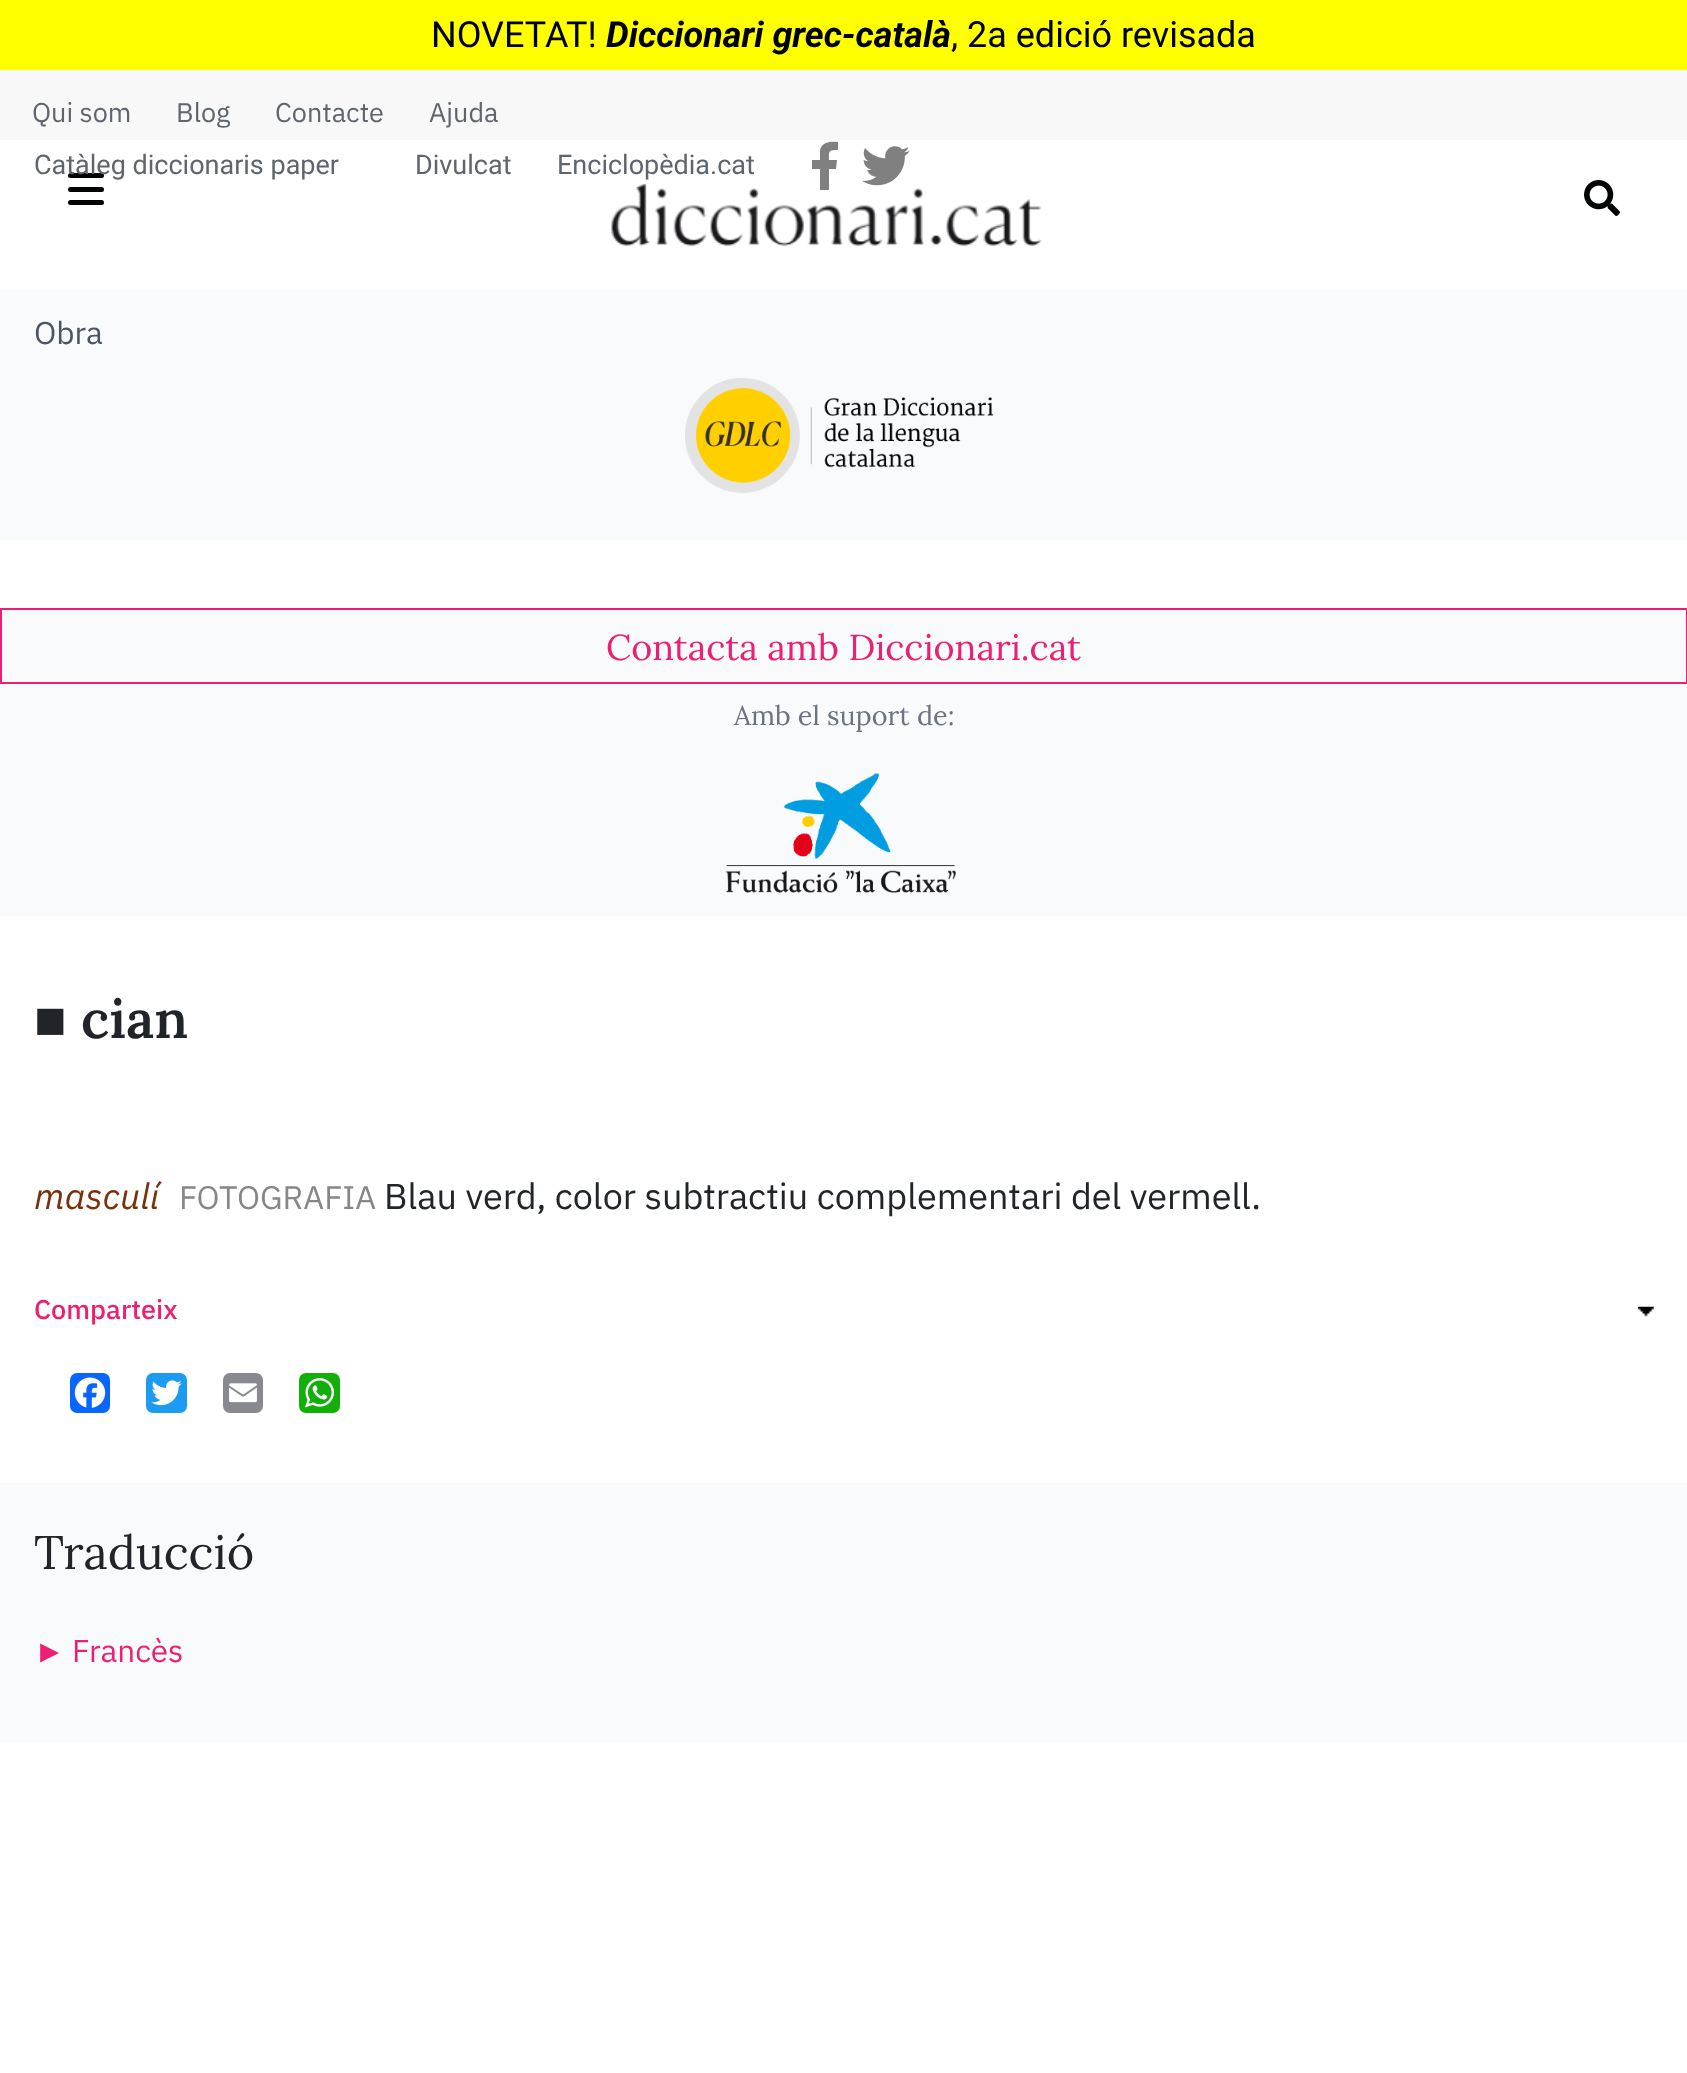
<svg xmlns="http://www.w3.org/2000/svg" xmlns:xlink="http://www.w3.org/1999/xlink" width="1687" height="2073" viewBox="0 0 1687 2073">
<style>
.cls-1{font:36px Roboto;fill:#000000}
.cls-2{font:italic bold 36px Roboto;fill:#000000}
.cls-3{font:27px IBM Plex Sans;fill:#5e656e}
.cls-4{font:27px Roboto;fill:#5e656e}
.cls-5{font:31.5px IBM Plex Sans;fill:#4b5563}
.cls-6{font:36px Lora;fill:#eb1f73}
.cls-7{font:27px Lora;fill:#6b7280}
.cls-8{font:bold 54px Liberation Serif;fill:#212529}
.cls-9{font:600 54px Lora;fill:#212529}
.cls-10{font:italic 36px IBM Plex Sans;fill:#78320a}
.cls-11{font:32.5px IBM Plex Sans;fill:#878787}
.cls-12{font:36px IBM Plex Sans;fill:#212529}
.cls-13{font:500 27px IBM Plex Sans;fill:#eb1f73}
.cls-14{font:47px Lora;fill:#212529}
.cls-15{font:31.5px Liberation Sans;fill:#eb1f73}
.cls-16{font:31.5px IBM Plex Sans;fill:#eb1f73}
</style>
<rect width="100%" height="100%" fill="#ffffff"/>
<rect fill="#ffff00" x="0" y="0" width="1687" height="70"/>
<rect fill="#f8f8f8" x="0" y="70" width="1687" height="70"/>
<image xlink:href="image1.png" x="611" y="183" width="431" height="64"/>
<path fill="#808080" d="M836 169L837 160H829C829 151 828 150 838 150V142C830 141 821 142 820 151V160H812V169H820V190H829V169Z"/>
<image xlink:href="image0.png" x="862" y="146" width="48" height="40"/>
<rect fill="#020303" x="68" y="173" width="36" height="5" rx="2.5"/>
<rect fill="#020303" x="68" y="187" width="36" height="5" rx="2.5"/>
<rect fill="#020303" x="68" y="200" width="36" height="5" rx="2.5"/>
<image xlink:href="image2.png" x="1584" y="180" width="36" height="36"/>
<rect fill="#f9fafb" x="0" y="290" width="1687" height="250"/>
<image xlink:href="image3.png" x="685" y="378" width="309" height="115"/>
<rect fill="#f9fafb" stroke="#eb1f73" stroke-width="2" x="1" y="609" width="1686" height="74"/>
<rect fill="#f9fafb" x="0" y="684" width="1687" height="232"/>
<image xlink:href="image4.png" x="725" y="773" width="231" height="120"/>
<image xlink:href="image5.png" x="1638" y="1306" width="16" height="11"/>
<rect fill="#0866ff" x="70" y="1373" width="40" height="40" rx="7"/>
<image xlink:href="image6.png" x="74" y="1377" width="32" height="31"/>
<rect fill="#1d9bf0" x="146" y="1373" width="41" height="40" rx="7"/>
<image xlink:href="image7.png" x="151" y="1380" width="31" height="26"/>
<rect fill="#888990" x="223" y="1373" width="40" height="40" rx="7"/>
<image xlink:href="image8.png" x="229" y="1383" width="28" height="20"/>
<rect fill="#12af0a" x="299" y="1373" width="41" height="40" rx="7"/>
<image xlink:href="image9.png" x="305" y="1378" width="30" height="30"/>
<rect fill="#f9fafb" x="0" y="1483" width="1687" height="259"/>
<text class="cls-1" x="431" y="47">NOVETAT!</text>
<text class="cls-2" x="606" y="47">Diccionari grec-català</text>
<text class="cls-1" x="951" y="47">, 2a edició revisada</text>
<text class="cls-3" x="32" y="122">Qui som</text>
<text class="cls-3" x="176" y="122">Blog</text>
<text class="cls-3" x="275" y="122">Contacte</text>
<text class="cls-3" x="429" y="122">Ajuda</text>
<text class="cls-4" x="34" y="174">Catàleg diccionaris paper</text>
<text class="cls-4" x="415" y="174">Divulcat</text>
<text class="cls-4" x="557" y="174">Enciclopèdia.cat</text>
<text class="cls-5" x="34" y="344">Obra</text>
<text class="cls-6" x="606" y="660">Contacta amb Diccionari.cat</text>
<text class="cls-7" x="734" y="725">Amb el suport de:</text>
<text class="cls-8" x="34" y="1038">■</text>
<text class="cls-9" x="81" y="1038">cian</text>
<text class="cls-10" x="34" y="1209">masculí</text>
<text class="cls-11" x="179" y="1209">FOTOGRAFIA</text>
<text class="cls-12" x="384" y="1209">Blau verd, color subtractiu complementari del vermell.</text>
<text class="cls-13" x="34" y="1319">Comparteix</text>
<text class="cls-14" x="34" y="1569">Traducció</text>
<text class="cls-15" x="34" y="1662">►</text>
<text class="cls-16" x="72" y="1662">Francès</text>
</svg>
